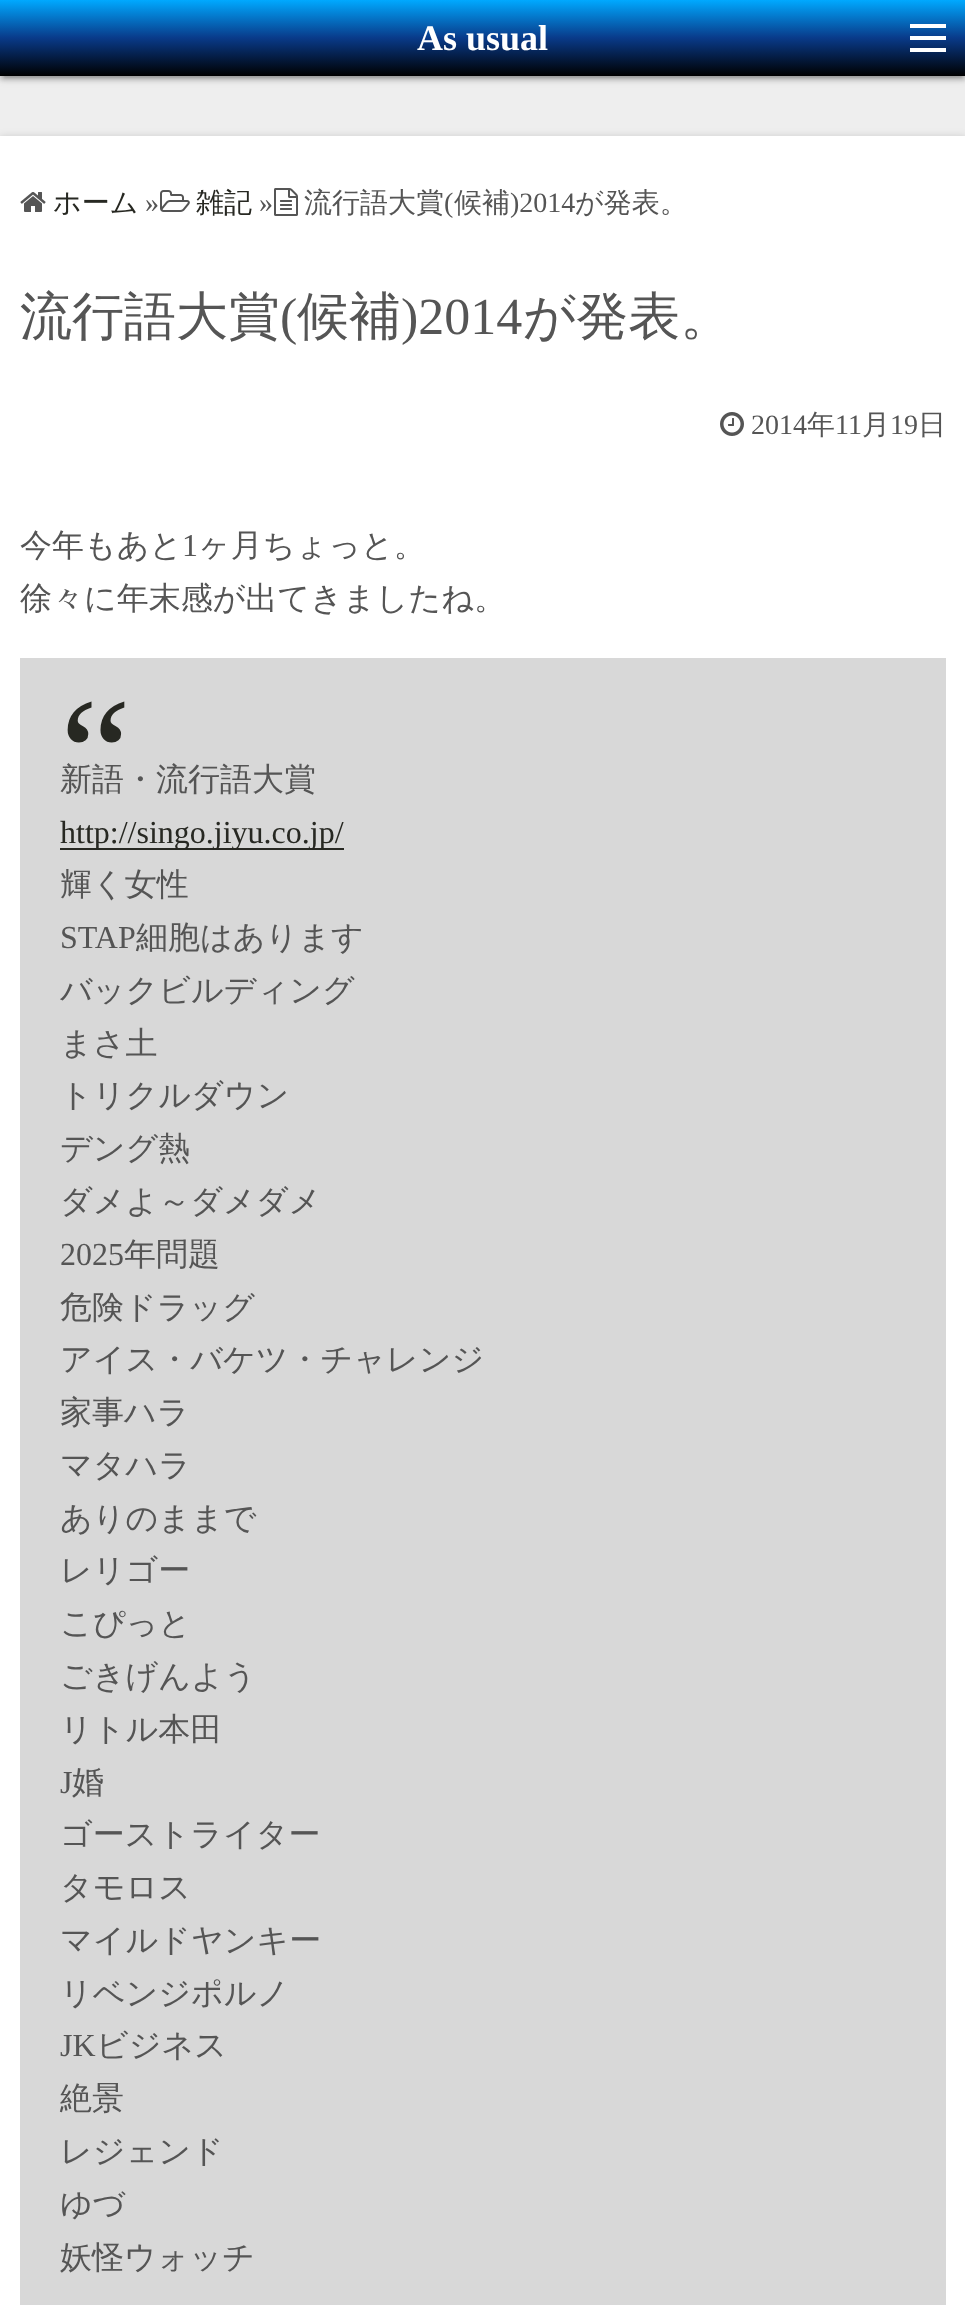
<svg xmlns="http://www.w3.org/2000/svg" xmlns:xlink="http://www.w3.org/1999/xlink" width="965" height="2305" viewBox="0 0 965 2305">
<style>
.cls-1{font:bold 36px Liberation Serif;fill:#ffffff}
.cls-2{font:500 28px WenQuanYi Zen Hei;fill:#272822}
.cls-3{font:28px Liberation Serif;fill:#555555}
.cls-4{font:500 28px WenQuanYi Zen Hei;fill:#555555}
.cls-5{font:500 52px WenQuanYi Zen Hei;fill:#555555}
.cls-6{font:52px Liberation Serif;fill:#555555}
.cls-7{font:500 32px WenQuanYi Zen Hei;fill:#555555}
.cls-8{font:32px Liberation Serif;fill:#555555}
.cls-9{font:160px Liberation Serif;fill:#272822}
.cls-10{font:32px Liberation Serif;fill:#272822}
</style>
<defs>
<linearGradient id="g1" gradientUnits="userSpaceOnUse" x1="483" y1="0" x2="483" y2="76"><stop offset="0" stop-color="#00a9ff"/><stop offset="0.5" stop-color="#093a89"/><stop offset="1" stop-color="#000000"/></linearGradient>
</defs>
<rect width="100%" height="100%" fill="#eeeeee"/>
<rect fill="#000000" fill-opacity="0.2" filter="blur(5px)" x="0" y="2" width="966" height="76"/>
<rect fill="#000000" fill-opacity="0.12" filter="blur(1px)" x="4" y="10" width="958" height="68"/>
<rect fill="#000000" fill-opacity="0.14" filter="blur(2px)" x="0" y="4" width="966" height="76"/>
<rect fill="url(#g1)" x="0" y="0" width="965" height="76"/>
<rect fill="#ffffff" x="910" y="36" width="36" height="4"/>
<rect fill="#ffffff" x="910" y="24" width="36" height="4"/>
<rect fill="#ffffff" x="910" y="48" width="36" height="4"/>
<rect fill="#000000" fill-opacity="0.2" filter="blur(5px)" x="0" y="138" width="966" height="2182"/>
<rect fill="#ffffff" x="0" y="136" width="965" height="2169"/>
<image xlink:href="image0.png" x="20" y="192" width="26" height="20"/>
<image xlink:href="image1.png" x="160" y="190" width="30" height="22"/>
<image xlink:href="image2.png" x="274" y="188" width="24" height="28"/>
<image xlink:href="image3.png" x="720" y="412" width="24" height="24"/>
<rect fill="#d8d8d8" x="20" y="658" width="926" height="1647"/>
<rect fill="#272822" x="60" y="848" width="284" height="2"/>
<text class="cls-1" x="417" y="50">As usual</text>
<text class="cls-2" x="53" y="212">ホーム</text>
<text class="cls-3" x="145" y="212">»</text>
<text class="cls-2" x="196" y="212">雑記</text>
<text class="cls-3" x="259" y="212">»</text>
<text class="cls-4" x="304" y="212">流行語大賞</text>
<text class="cls-3" x="444" y="212">(</text>
<text class="cls-4" x="454" y="212">候補</text>
<text class="cls-3" x="510" y="212">)2014</text>
<text class="cls-4" x="575" y="212">が発表。</text>
<text class="cls-5" x="20" y="334">流行語大賞</text>
<text class="cls-6" x="280" y="334">(</text>
<text class="cls-5" x="297" y="334">候補</text>
<text class="cls-6" x="401" y="334">)2014</text>
<text class="cls-5" x="523" y="334">が発表。</text>
<text class="cls-3" x="751" y="434">2014</text>
<text class="cls-4" x="807" y="434">年</text>
<text class="cls-3" x="835" y="434">11</text>
<text class="cls-4" x="862" y="434">月</text>
<text class="cls-3" x="890" y="434">19</text>
<text class="cls-4" x="918" y="434">日</text>
<text class="cls-7" x="20" y="556">今年もあと</text>
<text class="cls-8" x="182" y="556">1</text>
<text class="cls-7" x="198" y="556">ヶ月ちょっと。</text>
<text class="cls-7" x="20" y="609">徐々に年末感が出てきましたね。</text>
<text class="cls-9" x="60" y="808">“</text>
<text class="cls-7" x="60" y="790">新語・流行語大賞</text>
<text class="cls-10" x="60" y="843">http://singo.jiyu.co.jp/</text>
<text class="cls-7" x="60" y="895">輝く女性</text>
<text class="cls-8" x="60" y="948">STAP</text>
<text class="cls-7" x="136" y="948">細胞はあります</text>
<text class="cls-7"><tspan x="60" y="1001">バックビルディング</tspan><tspan x="60" y="1054">まさ土</tspan><tspan x="60" y="1106">トリクルダウン</tspan><tspan x="60" y="1159">デング熱</tspan><tspan x="60" y="1212">ダメよ～ダメダメ</tspan></text>
<text class="cls-8" x="60" y="1265">2025</text>
<text class="cls-7" x="124" y="1265">年問題</text>
<text class="cls-7"><tspan x="60" y="1318">危険ドラッグ</tspan><tspan x="60" y="1370">アイス・バケツ・チャレンジ</tspan><tspan x="60" y="1423">家事ハラ</tspan><tspan x="60" y="1476">マタハラ</tspan><tspan x="60" y="1529">ありのままで</tspan><tspan x="60" y="1581">レリゴー</tspan><tspan x="60" y="1634">こぴっと</tspan><tspan x="60" y="1687">ごきげんよう</tspan><tspan x="60" y="1740">リトル本田</tspan></text>
<text class="cls-8" x="60" y="1793">J</text>
<text class="cls-7" x="72" y="1793">婚</text>
<text class="cls-7"><tspan x="60" y="1845">ゴーストライター</tspan><tspan x="60" y="1898">タモロス</tspan><tspan x="60" y="1951">マイルドヤンキー</tspan><tspan x="60" y="2004">リベンジポルノ</tspan></text>
<text class="cls-8" x="60" y="2056">JK</text>
<text class="cls-7" x="96" y="2056">ビジネス</text>
<text class="cls-7"><tspan x="60" y="2109">絶景</tspan><tspan x="60" y="2162">レジェンド</tspan><tspan x="60" y="2215">ゆづ</tspan><tspan x="60" y="2268">妖怪ウォッチ</tspan></text>
</svg>
